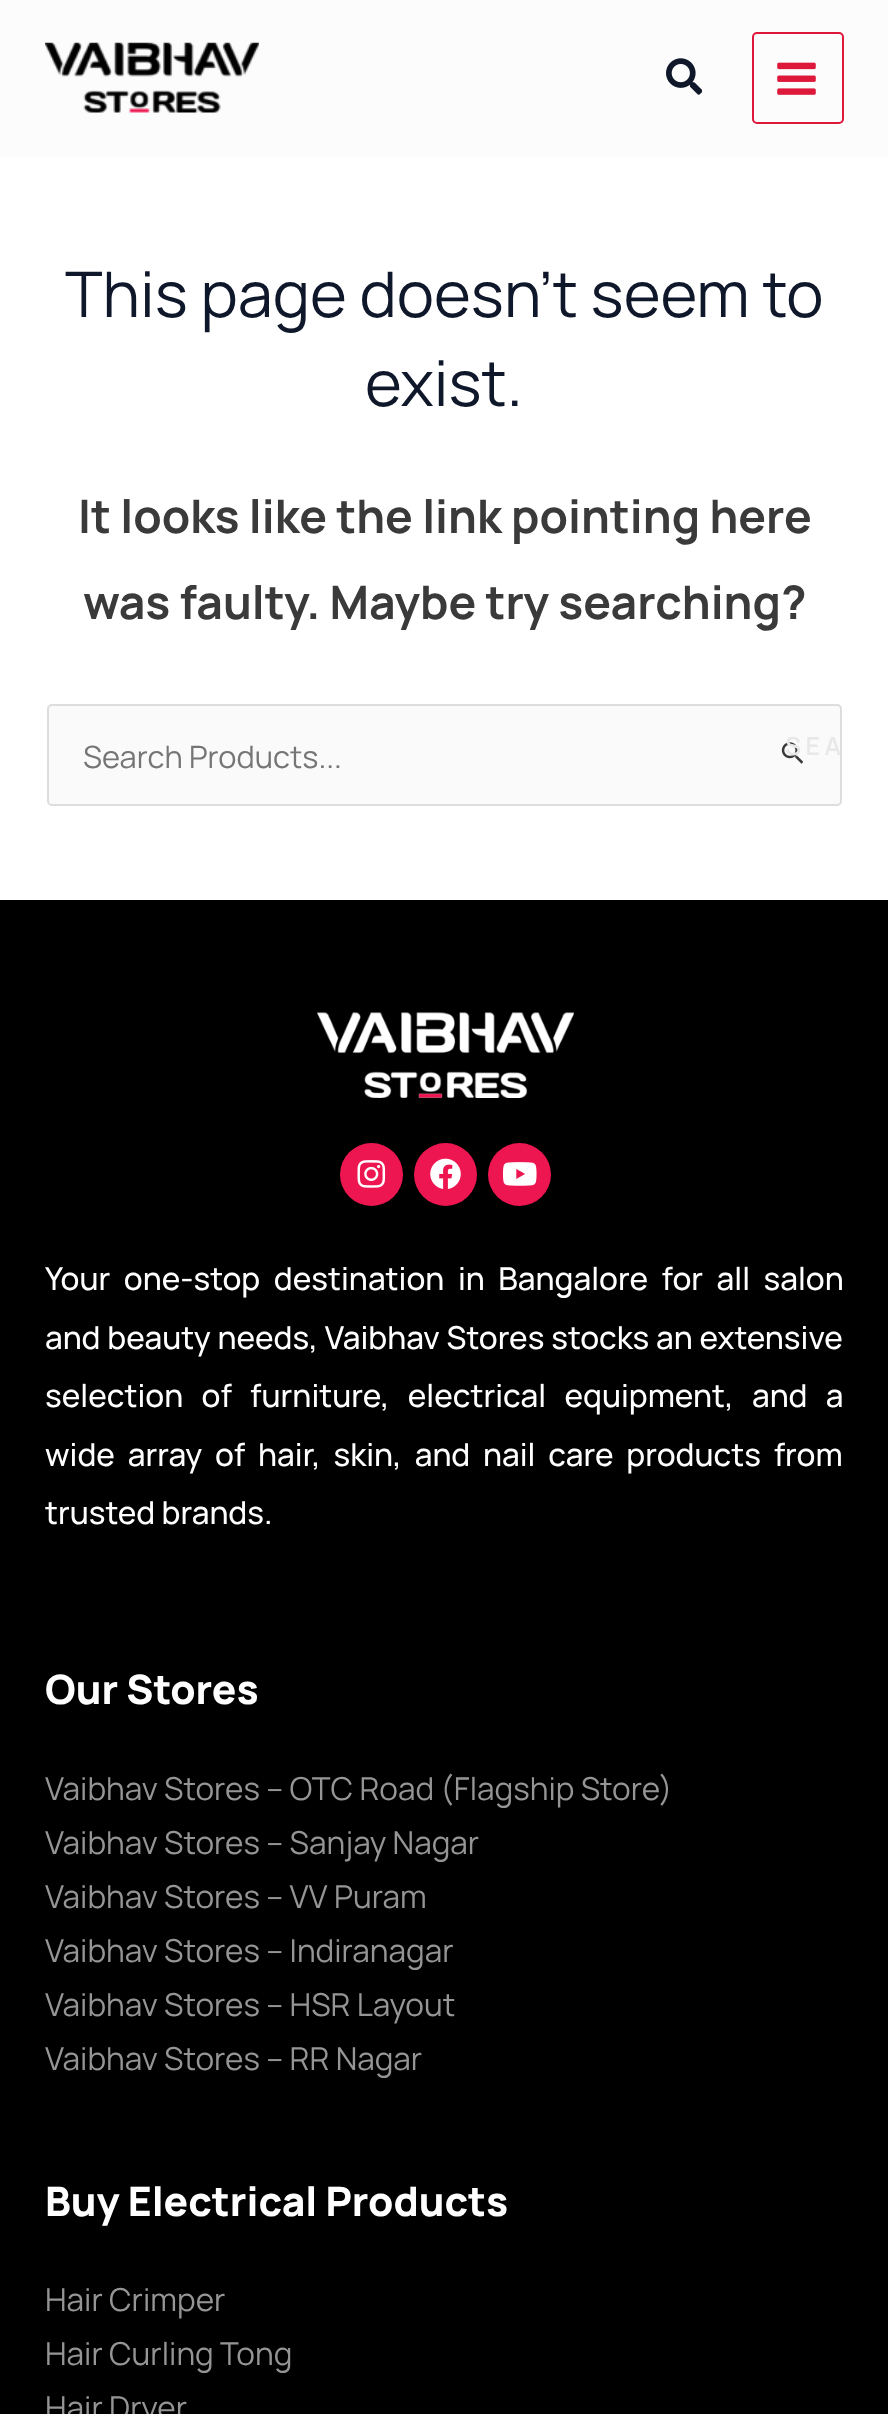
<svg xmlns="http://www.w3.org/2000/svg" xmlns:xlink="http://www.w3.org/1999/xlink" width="888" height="2414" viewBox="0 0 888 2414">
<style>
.cls-1{font:63px Manrope;fill:#0f172a}
.cls-2{font:bold 46.2px Manrope;fill:#3a3a3a}
.cls-3{font:30.75px Manrope;fill:#757575}
.cls-4{font:600 25px Manrope;letter-spacing:4.5px;fill:#e8e8e8}
.cls-5{font:500 31.5px Manrope;fill:#ffffff}
.cls-6{font:800 40.5px Manrope;fill:#ffffff}
.cls-7{font:31.5px Manrope;fill:#959595}
</style>
<rect width="100%" height="100%" fill="#ffffff"/>
<rect fill="#fcfcfc" x="0" y="0" width="888" height="158"/>
<image xlink:href="image0.png" x="45" y="42" width="214" height="71"/>
<image xlink:href="image1.png" x="666" y="58" width="36" height="37"/>
<rect fill="none" stroke="#dd183b" stroke-width="2" x="753" y="33" width="90" height="90" rx="4"/>
<image xlink:href="image2.png" x="777" y="62" width="39" height="33"/>
<rect fill="#fafafa" stroke="#dddddd" stroke-width="2" x="48" y="705" width="793" height="100" rx="4"/>
<image xlink:href="image3.png" x="781" y="742" width="22" height="22"/>
<rect fill="#000000" x="0" y="900" width="888" height="1514"/>
<image xlink:href="image4.png" x="317" y="1012" width="257" height="86"/>
<circle fill="#ed1651" cx="371.5" cy="1174.5" r="31.5"/>
<image xlink:href="image5.png" x="357" y="1160" width="29" height="28"/>
<circle fill="#ed1651" cx="445.5" cy="1174.5" r="31.5"/>
<image xlink:href="image6.png" x="430" y="1158" width="31" height="31"/>
<circle fill="#ed1651" cx="519.5" cy="1174.5" r="31.5"/>
<image xlink:href="image7.png" x="502" y="1162" width="35" height="24"/>
<text class="cls-1" x="65" y="317">This page doesn't seem to</text>
<text class="cls-1" x="365" y="406">exist.</text>
<text class="cls-2" x="78" y="533">It looks like the link pointing here</text>
<text class="cls-2" x="83" y="619">was faulty. Maybe try searching?</text>
<text class="cls-3" x="83" y="768">Search Products...</text>
<text class="cls-4" x="785" y="755">SEA</text>
<text class="cls-5"><tspan x="45" y="1290" word-spacing="7.25">Your one-stop destination in Bangalore for all salon</tspan><tspan x="45" y="1349" word-spacing="0.5">and beauty needs, Vaibhav Stores stocks an extensive</tspan><tspan x="45" y="1407" word-spacing="12">selection of furniture, electrical equipment, and a</tspan><tspan x="45" y="1466" word-spacing="6.5">wide array of hair, skin, and nail care products from</tspan><tspan x="45" y="1524">trusted brands.</tspan></text>
<text class="cls-6" x="45" y="1704">Our Stores</text>
<text class="cls-7"><tspan x="45" y="1800">Vaibhav Stores – OTC Road (Flagship Store)</tspan><tspan x="45" y="1854">Vaibhav Stores – Sanjay Nagar</tspan><tspan x="45" y="1908">Vaibhav Stores – VV Puram</tspan><tspan x="45" y="1962">Vaibhav Stores – Indiranagar</tspan><tspan x="45" y="2016">Vaibhav Stores – HSR Layout</tspan><tspan x="45" y="2070">Vaibhav Stores – RR Nagar</tspan></text>
<text class="cls-6" x="45" y="2216">Buy Electrical Products</text>
<text class="cls-7"><tspan x="45" y="2311">Hair Crimper</tspan><tspan x="45" y="2365">Hair Curling Tong</tspan><tspan x="45" y="2419">Hair Dryer</tspan></text>
</svg>
